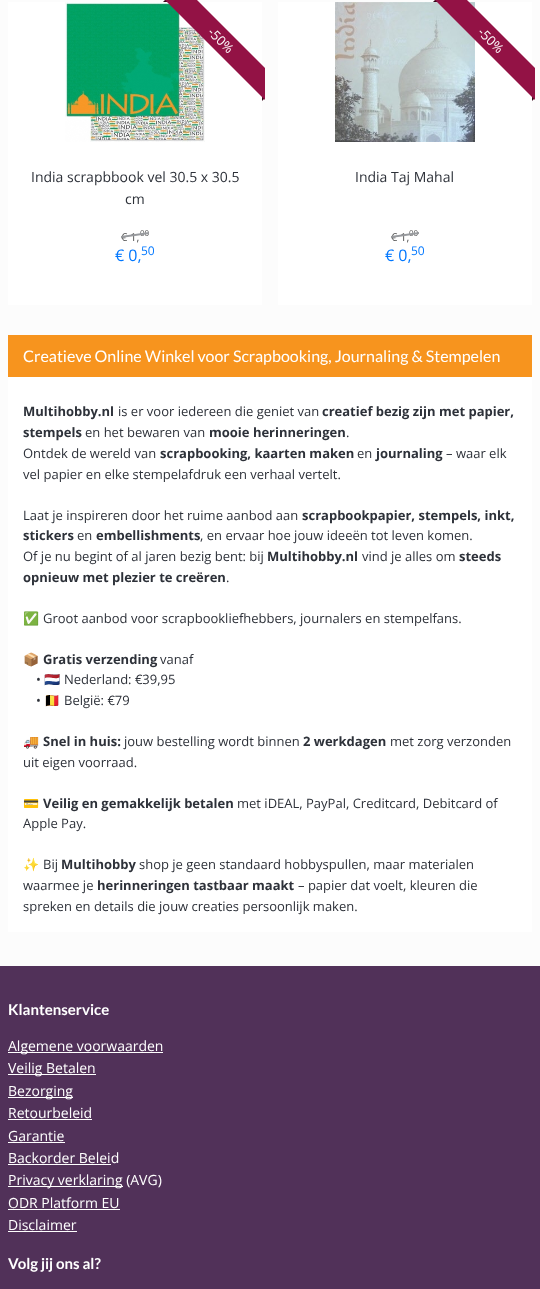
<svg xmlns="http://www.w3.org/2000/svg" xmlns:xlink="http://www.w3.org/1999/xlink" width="540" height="1289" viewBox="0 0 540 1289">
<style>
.cls-1{font:13px Open Sans;fill:#ffffff}
.cls-2{font:14px Open Sans;fill:#2d3139}
.cls-3{font:11px Open Sans;fill:#4d4d4d}
.cls-4{font:8px Open Sans;fill:#4d4d4d}
.cls-5{font:16px Open Sans;fill:#0077ff}
.cls-6{font:12px Open Sans;fill:#0077ff}
.cls-7{font:16px Lato;fill:#ffffff}
.cls-8{font:bold 13px Open Sans;fill:#2d3139}
.cls-9{font:13px Open Sans;fill:#2d3139}
.cls-10{font:13px Noto Color Emoji;fill:#2d3139}
.cls-11{font:bold 15px Lato;fill:#ffffff}
.cls-12{font:14px Open Sans;fill:#ffffff}
</style>
<defs>
<clipPath id="clip1"><rect x="145" y="0" width="120" height="119"/></clipPath>
<clipPath id="clip2"><rect x="415" y="0" width="120" height="119"/></clipPath>
</defs>
<rect width="100%" height="100%" fill="#fcfcfc"/>
<rect fill="#ffffff" x="8" y="2" width="254" height="303"/>
<image xlink:href="image0.png" x="65" y="2" width="140" height="140"/>
<path fill="#38071a" d="M169 2H163L166-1Z"/>
<path fill="#38071a" d="M262 101V95L265 98Z"/>
<g clip-path="url(#clip1)">
<path fill="#931245" d="M176-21L282 85L266 101L160-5Z"/>
</g>
<rect fill="#ffffff" x="278" y="2" width="254" height="303"/>
<image xlink:href="image1.png" x="335" y="2" width="140" height="140"/>
<path fill="#38071a" d="M439 2H433L436-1Z"/>
<path fill="#38071a" d="M532 101V95L535 98Z"/>
<g clip-path="url(#clip2)">
<path fill="#931245" d="M446-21L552 85L536 101L430-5Z"/>
</g>
<rect fill="#ffffff" x="8" y="377" width="524" height="555"/>
<rect fill="#f7941e" x="8" y="335" width="524" height="42"/>
<rect fill="#513159" x="0" y="966" width="540" height="323"/>
<rect fill="#ffffff" x="8" y="1052" width="155" height="1"/>
<rect fill="#ffffff" x="8" y="1074" width="88" height="1"/>
<rect fill="#ffffff" x="8" y="1097" width="65" height="1"/>
<rect fill="#ffffff" x="8" y="1119" width="84" height="1"/>
<rect fill="#ffffff" x="8" y="1142" width="57" height="1"/>
<rect fill="#ffffff" x="8" y="1164" width="103" height="1"/>
<rect fill="#ffffff" x="8" y="1186" width="115" height="1"/>
<rect fill="#ffffff" x="8" y="1209" width="112" height="1"/>
<rect fill="#ffffff" x="8" y="1231" width="69" height="1"/>
<text class="cls-1" x="207" y="33" transform="rotate(45 207 33)">-50%</text>
<text class="cls-2" x="31" y="182">India scrapbbook vel 30.5 x 30.5</text>
<text class="cls-2" x="125" y="204">cm</text>
<text class="cls-3" x="121" y="241">€ 1,</text>
<text class="cls-4" x="140" y="236">00</text>
<path fill="#989a9e" d="M121 236L149 232V234L121 238Z"/>
<text class="cls-5" x="115" y="261">€ 0,</text>
<text class="cls-6" x="141" y="255">50</text>
<text class="cls-1" x="477" y="33" transform="rotate(45 477 33)">-50%</text>
<text class="cls-2" x="355" y="182">India Taj Mahal</text>
<text class="cls-3" x="391" y="241">€ 1,</text>
<text class="cls-4" x="409" y="236">00</text>
<path fill="#989a9e" d="M391 236L419 232V234L391 238Z"/>
<text class="cls-5" x="385" y="261">€ 0,</text>
<text class="cls-6" x="411" y="255">50</text>
<text class="cls-7" x="23" y="362">Creatieve Online Winkel voor Scrapbooking, Journaling &amp; Stempelen</text>
<text class="cls-8" x="23" y="416">Multihobby.nl</text>
<text class="cls-9" x="118" y="416">is er voor iedereen die geniet van</text>
<text class="cls-8" x="322" y="416">creatief bezig zijn met papier,</text>
<text class="cls-8" x="23" y="437">stempels</text>
<text class="cls-9" x="85" y="437">en het bewaren van</text>
<text class="cls-8" x="209" y="437">mooie herinneringen</text>
<text class="cls-9" x="346" y="437">.</text>
<text class="cls-9" x="23" y="458">Ontdek de wereld van</text>
<text class="cls-8" x="160" y="458">scrapbooking, kaarten maken</text>
<text class="cls-9" x="357" y="458">en</text>
<text class="cls-8" x="376" y="458">journaling</text>
<text class="cls-9" x="446" y="458">– waar elk</text>
<text class="cls-9" x="23" y="479">vel papier en elke stempelafdruk een verhaal vertelt.</text>
<text class="cls-9" x="23" y="520">Laat je inspireren door het ruime aanbod aan</text>
<text class="cls-8" x="302" y="520">scrapbookpapier, stempels, inkt,</text>
<text class="cls-8" x="23" y="540">stickers</text>
<text class="cls-9" x="77" y="540">en</text>
<text class="cls-8" x="96" y="540">embellishments</text>
<text class="cls-9" x="200" y="540">, en ervaar hoe jouw ideeën tot leven komen.</text>
<text class="cls-9" x="23" y="561">Of je nu begint of al jaren bezig bent: bij</text>
<text class="cls-8" x="267" y="561">Multihobby.nl</text>
<text class="cls-9" x="362" y="561">vind je alles om</text>
<text class="cls-8" x="459" y="561">steeds</text>
<text class="cls-8" x="23" y="582">opnieuw met plezier te creëren</text>
<text class="cls-9" x="226" y="582">.</text>
<text class="cls-10" x="23" y="623">✅</text>
<text class="cls-9" x="43" y="623">Groot aanbod voor scrapbookliefhebbers, journalers en stempelfans.</text>
<text class="cls-10" x="23" y="664">📦</text>
<text class="cls-8" x="43" y="664">Gratis verzending</text>
<text class="cls-9" x="160" y="664">vanaf</text>
<text class="cls-9" x="36" y="684">•</text>
<text class="cls-10" x="44" y="684">🇳🇱</text>
<text class="cls-9" x="64" y="684">Nederland: €39,95</text>
<text class="cls-9" x="36" y="705">•</text>
<text class="cls-10" x="44" y="705">🇧🇪</text>
<text class="cls-9" x="64" y="705">België: €79</text>
<text class="cls-10" x="23" y="746">🚚</text>
<text class="cls-8" x="43" y="746">Snel in huis:</text>
<text class="cls-9" x="124" y="746">jouw bestelling wordt binnen</text>
<text class="cls-8" x="303" y="746">2 werkdagen</text>
<text class="cls-9" x="390" y="746">met zorg verzonden</text>
<text class="cls-9" x="23" y="767">uit eigen voorraad.</text>
<text class="cls-10" x="23" y="808">💳</text>
<text class="cls-8" x="43" y="808">Veilig en gemakkelijk betalen</text>
<text class="cls-9" x="237" y="808">met iDEAL, PayPal, Creditcard, Debitcard of</text>
<text class="cls-9" x="23" y="828">Apple Pay.</text>
<text class="cls-10" x="23" y="869">✨</text>
<text class="cls-9" x="43" y="869">Bij</text>
<text class="cls-8" x="61" y="869">Multihobby</text>
<text class="cls-9" x="139" y="869">shop je geen standaard hobbyspullen, maar materialen</text>
<text class="cls-9" x="23" y="890">waarmee je</text>
<text class="cls-8" x="97" y="890">herinneringen tastbaar maakt</text>
<text class="cls-9" x="298" y="890">– papier dat voelt, kleuren die</text>
<text class="cls-9" x="23" y="911">spreken en details die jouw creaties persoonlijk maken.</text>
<text class="cls-11" x="8" y="1015">Klantenservice</text>
<text class="cls-12"><tspan x="8" y="1051">Algemene voorwaarden</tspan><tspan x="8" y="1073">Veilig Betalen</tspan><tspan x="8" y="1096">Bezorging</tspan><tspan x="8" y="1118">Retourbeleid</tspan><tspan x="8" y="1141">Garantie</tspan><tspan x="8" y="1163">Backorder Beleid</tspan><tspan x="8" y="1185">Privacy verklaring (AVG)</tspan><tspan x="8" y="1208">ODR Platform EU</tspan><tspan x="8" y="1230">Disclaimer</tspan></text>
<text class="cls-11" x="8" y="1269">Volg jij ons al?</text>
</svg>
